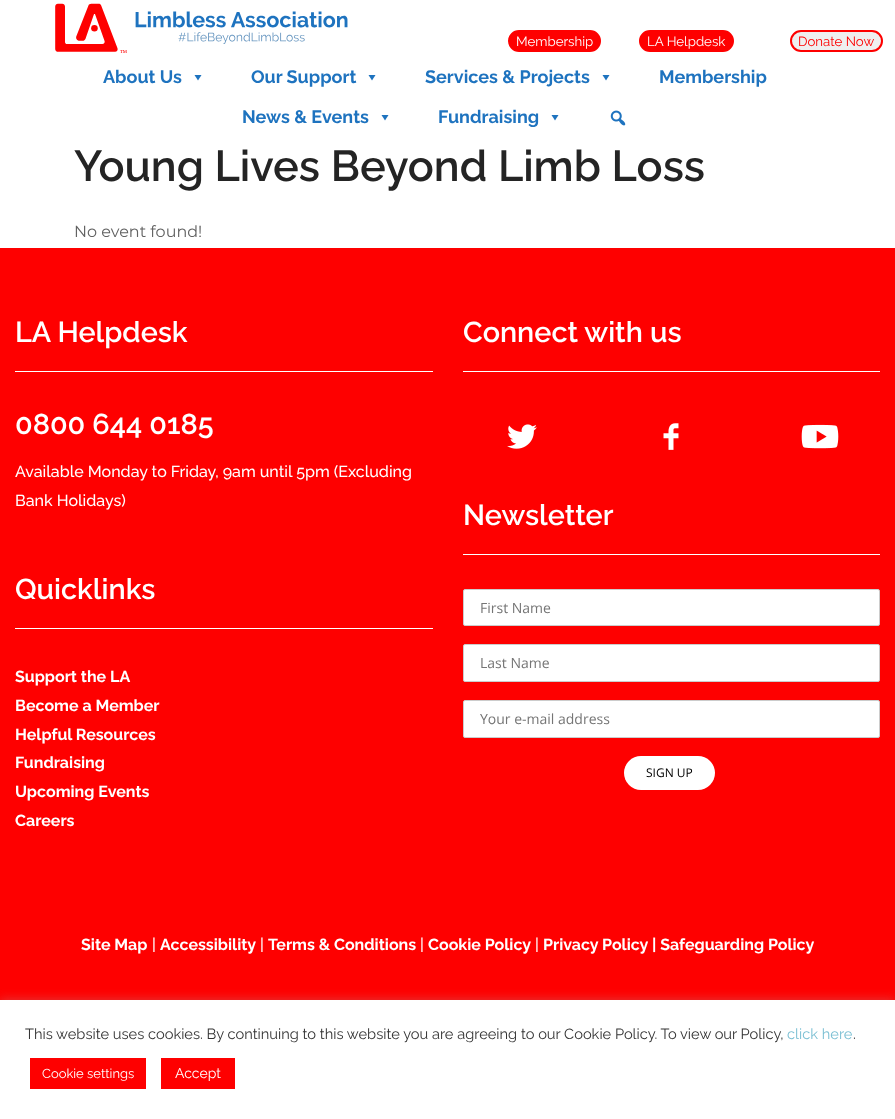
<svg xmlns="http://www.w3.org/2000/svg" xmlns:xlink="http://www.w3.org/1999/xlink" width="895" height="1119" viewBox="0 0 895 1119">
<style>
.cls-1{font:13.25px Raleway;fill:#ffffff}
.cls-2{font:13.25px Raleway;fill:#fe0000}
.cls-3{font:bold 18px Raleway;fill:#1e73bf}
.cls-4{font:600 43.25px Raleway;fill:#242424}
.cls-5{font:16px Montserrat;fill:#626262}
.cls-6{font:600 28.75px Raleway;fill:#ffffff}
.cls-7{font:500 16px Raleway;fill:#ffffff}
.cls-8{font:bold 16px Raleway;fill:#ffffff}
.cls-9{font:14px Open Sans;fill:#757575}
.cls-10{font:12px Open Sans;fill:#000000}
.cls-11{font:14.67px Raleway;fill:#333333}
.cls-12{font:14.67px Raleway;fill:#7abfd3}
.cls-13{font:13px Raleway;fill:#ffffff}
.cls-14{font:14px Raleway;fill:#ffffff}
</style>
<rect width="100%" height="100%" fill="#ffffff"/>
<image xlink:href="image0.png" x="55" y="3" width="293" height="50"/>
<rect fill="#fe0000" stroke="#fe0000" stroke-width="2" x="509" y="31" width="91" height="20" rx="10"/>
<rect fill="#fe0000" stroke="#fe0000" stroke-width="2" x="640" y="31" width="93" height="20" rx="10"/>
<rect fill="#efefef" stroke="#fe0000" stroke-width="2" x="791" y="31" width="91" height="20" rx="10"/>
<path fill="#1e73bf" d="M201.5 75L198 80.5L194.5 75Z"/>
<path fill="#1e73bf" d="M375.5 75L372 80.5L368.5 75Z"/>
<path fill="#1e73bf" d="M609.5 75L606 80.5L602.5 75Z"/>
<path fill="#1e73bf" d="M388.5 115L385 120.5L381.5 115Z"/>
<path fill="#1e73bf" d="M558.5 115L555 120.5L551.5 115Z"/>
<image xlink:href="image1.png" x="610" y="110" width="16" height="16"/>
<rect fill="#fe0000" x="0" y="248" width="895" height="752"/>
<rect fill="#ffffff" x="15" y="371" width="418" height="1"/>
<rect fill="#ffffff" x="15" y="628" width="418" height="1"/>
<rect fill="#ffffff" x="463" y="371" width="417" height="1"/>
<image xlink:href="image2.png" x="507" y="424" width="30" height="25"/>
<image xlink:href="image3.png" x="663" y="423" width="16" height="27"/>
<image xlink:href="image4.png" x="801" y="424" width="38" height="25"/>
<rect fill="#ffffff" x="463" y="554" width="417" height="1"/>
<rect fill="#ffffff" stroke="#cccccc" x="463.5" y="589.5" width="416" height="36" rx="1.5"/>
<rect fill="#ffffff" stroke="#cccccc" x="463.5" y="644.5" width="416" height="37" rx="1.5"/>
<rect fill="#ffffff" stroke="#cccccc" x="463.5" y="700.5" width="416" height="37" rx="1.5"/>
<rect fill="#ffffff" x="624" y="756" width="91" height="34" rx="17"/>
<rect fill="#acabab" fill-opacity="0.3" filter="blur(5px)" x="0" y="999" width="895" height="119"/>
<rect fill="#ffffff" x="0" y="1000" width="895" height="119"/>
<rect fill="#fe0000" x="30" y="1058" width="116" height="31"/>
<rect fill="#fe0000" x="161" y="1058" width="74" height="31"/>
<text class="cls-1" x="516" y="46">Membership</text>
<text class="cls-1" x="647" y="46">LA Helpdesk</text>
<text class="cls-2" x="798" y="46">Donate Now</text>
<text class="cls-3" x="103" y="83">About Us</text>
<text class="cls-3" x="251" y="83">Our Support</text>
<text class="cls-3" x="425" y="83">Services &amp; Projects</text>
<text class="cls-3" x="659" y="83">Membership</text>
<text class="cls-3" x="242" y="123">News &amp; Events</text>
<text class="cls-3" x="438" y="123">Fundraising</text>
<text class="cls-4" x="74" y="181">Young Lives Beyond Limb Loss</text>
<text class="cls-5" x="74" y="237">No event found!</text>
<text class="cls-6" x="15" y="342">LA Helpdesk</text>
<text class="cls-6" x="15" y="434">0800 644 0185</text>
<text class="cls-7"><tspan x="15" y="477">Available Monday to Friday, 9am until 5pm (Excluding</tspan><tspan x="15" y="506">Bank Holidays)</tspan></text>
<text class="cls-6" x="15" y="599">Quicklinks</text>
<text class="cls-8"><tspan x="15" y="682">Support the LA</tspan><tspan x="15" y="711">Become a Member</tspan><tspan x="15" y="740">Helpful Resources</tspan><tspan x="15" y="768">Fundraising</tspan><tspan x="15" y="797">Upcoming Events</tspan><tspan x="15" y="826">Careers</tspan></text>
<text class="cls-6" x="463" y="342">Connect with us</text>
<text class="cls-6" x="463" y="525">Newsletter</text>
<text class="cls-9" x="480" y="613">First Name</text>
<text class="cls-9" x="480" y="668">Last Name</text>
<text class="cls-9" x="480" y="724">Your e-mail address</text>
<text class="cls-10" x="646" y="777">SIGN UP</text>
<text class="cls-8" x="81" y="950">Site Map</text>
<text class="cls-7" x="152" y="950">|</text>
<text class="cls-8" x="160" y="950">Accessibility</text>
<text class="cls-7" x="260" y="950">|</text>
<text class="cls-8" x="268" y="950">Terms &amp; Conditions</text>
<text class="cls-7" x="420" y="950">|</text>
<text class="cls-8" x="428" y="950">Cookie Policy</text>
<text class="cls-7" x="535" y="950">|</text>
<text class="cls-8" x="543" y="950">Privacy Policy</text>
<text class="cls-8" x="652" y="950">| Safeguarding Policy</text>
<text class="cls-11" x="25" y="1039">This website uses cookies. By continuing to this website you are agreeing to our Cookie Policy. To view our Policy,</text>
<text class="cls-12" x="787" y="1039">click here</text>
<text class="cls-11" x="853" y="1039">.</text>
<text class="cls-13" x="42" y="1078">Cookie settings</text>
<text class="cls-14" x="175" y="1078">Accept</text>
</svg>
